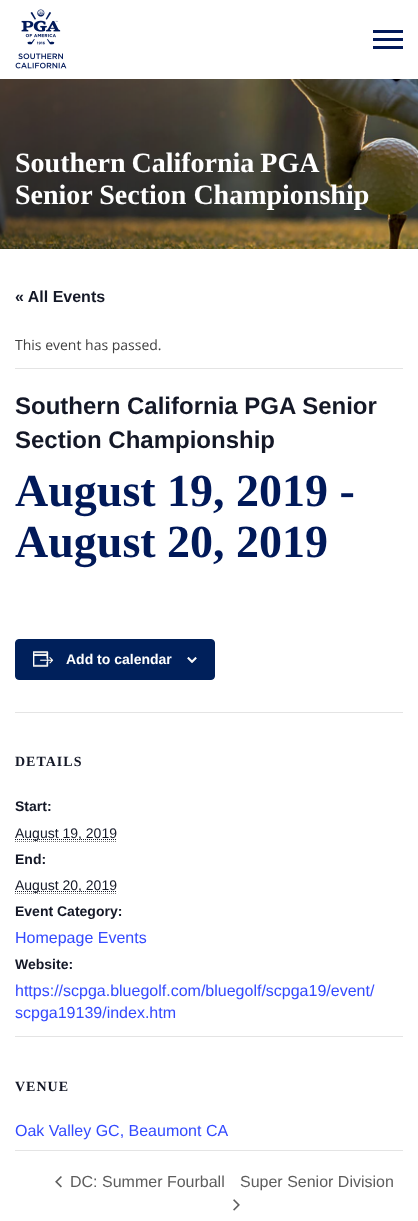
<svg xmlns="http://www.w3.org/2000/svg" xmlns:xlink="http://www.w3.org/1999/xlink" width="418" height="1221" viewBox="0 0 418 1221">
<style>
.cls-1{font:bold 28px Liberation Serif;fill:#ffffff}
.cls-2{font:bold 16px Liberation Sans;fill:#141827}
.cls-3{font:14px Open Sans;fill:#404040}
.cls-4{font:bold 24px Liberation Sans;fill:#141827}
.cls-5{font:bold 46px Liberation Serif;fill:#011959}
.cls-6{font:bold 14px Liberation Sans;fill:#ffffff}
.cls-7{font:bold 14px Liberation Serif;letter-spacing:1px;fill:#141827}
.cls-8{font:bold 14px Liberation Sans;fill:#141827}
.cls-9{font:14px Liberation Sans;fill:#141827}
.cls-10{font:16px Liberation Sans;fill:#334aff}
.cls-11{font:16px Liberation Sans;fill:#5d5d5d}
</style>
<rect width="100%" height="100%" fill="#ffffff"/>
<image xlink:href="image0.png" x="15" y="9" width="52" height="60"/>
<rect fill="#011959" x="373" y="30" width="30" height="3"/>
<rect fill="#011959" x="373" y="38" width="30" height="3"/>
<rect fill="#011959" x="373" y="46" width="30" height="3"/>
<image xlink:href="image1.png" x="0" y="79" width="418" height="170"/>
<rect fill="#e4e4e4" x="15" y="368" width="388" height="1"/>
<rect fill="#00205b" stroke="#00205b" x="15.5" y="639.5" width="199" height="40" rx="3.5"/>
<image xlink:href="image2.png" x="33" y="651" width="21" height="16"/>
<image xlink:href="image3.png" x="187" y="657" width="10" height="6"/>
<rect fill="#e4e4e4" x="15" y="712" width="388" height="1"/>
<path fill="none" stroke="#777777" stroke-dasharray="1 1" d="M15 841.5H117"/>
<path fill="none" stroke="#141827" stroke-dasharray="1 1" d="M15 839.5H117"/>
<path fill="none" stroke="#777777" stroke-dasharray="1 1" d="M15 893.5H117"/>
<path fill="none" stroke="#141827" stroke-dasharray="1 1" d="M15 891.5H117"/>
<rect fill="#e4e4e4" x="15" y="1036" width="388" height="1"/>
<rect fill="#e4e4e4" x="15" y="1150" width="388" height="1"/>
<image xlink:href="image4.png" x="55" y="1176" width="7" height="12"/>
<image xlink:href="image5.png" x="233" y="1199" width="7" height="12"/>
<text class="cls-1"><tspan x="15" y="172" word-spacing="-1">Southern California PGA</tspan><tspan x="15" y="204">Senior Section Championship</tspan></text>
<text class="cls-2" x="15" y="302">« All Events</text>
<text class="cls-3" x="15" y="350">This event has passed.</text>
<text class="cls-4"><tspan x="15" y="414">Southern California PGA Senior</tspan><tspan x="15" y="448">Section Championship</tspan></text>
<text class="cls-5"><tspan x="15" y="506">August 19, 2019 -</tspan><tspan x="15" y="557">August 20, 2019</tspan></text>
<text class="cls-6" x="66" y="664">Add to calendar</text>
<text class="cls-7" x="15" y="766">DETAILS</text>
<text class="cls-8" x="15" y="811">Start:</text>
<text class="cls-9" x="15" y="838">August 19, 2019</text>
<text class="cls-8" x="15" y="864">End:</text>
<text class="cls-9" x="15" y="890">August 20, 2019</text>
<text class="cls-8" x="15" y="916">Event Category:</text>
<text class="cls-10" x="15" y="943">Homepage Events</text>
<text class="cls-8" x="15" y="969">Website:</text>
<text class="cls-10"><tspan x="15" y="996">https://scpga.bluegolf.com/bluegolf/scpga19/event/</tspan><tspan x="15" y="1018">scpga19139/index.htm</tspan></text>
<text class="cls-7" x="15" y="1091">VENUE</text>
<text class="cls-10" x="15" y="1136">Oak Valley GC, Beaumont CA</text>
<text class="cls-11" x="70" y="1187">DC: Summer Fourball</text>
<text class="cls-11" x="240" y="1187">Super Senior Division</text>
</svg>
